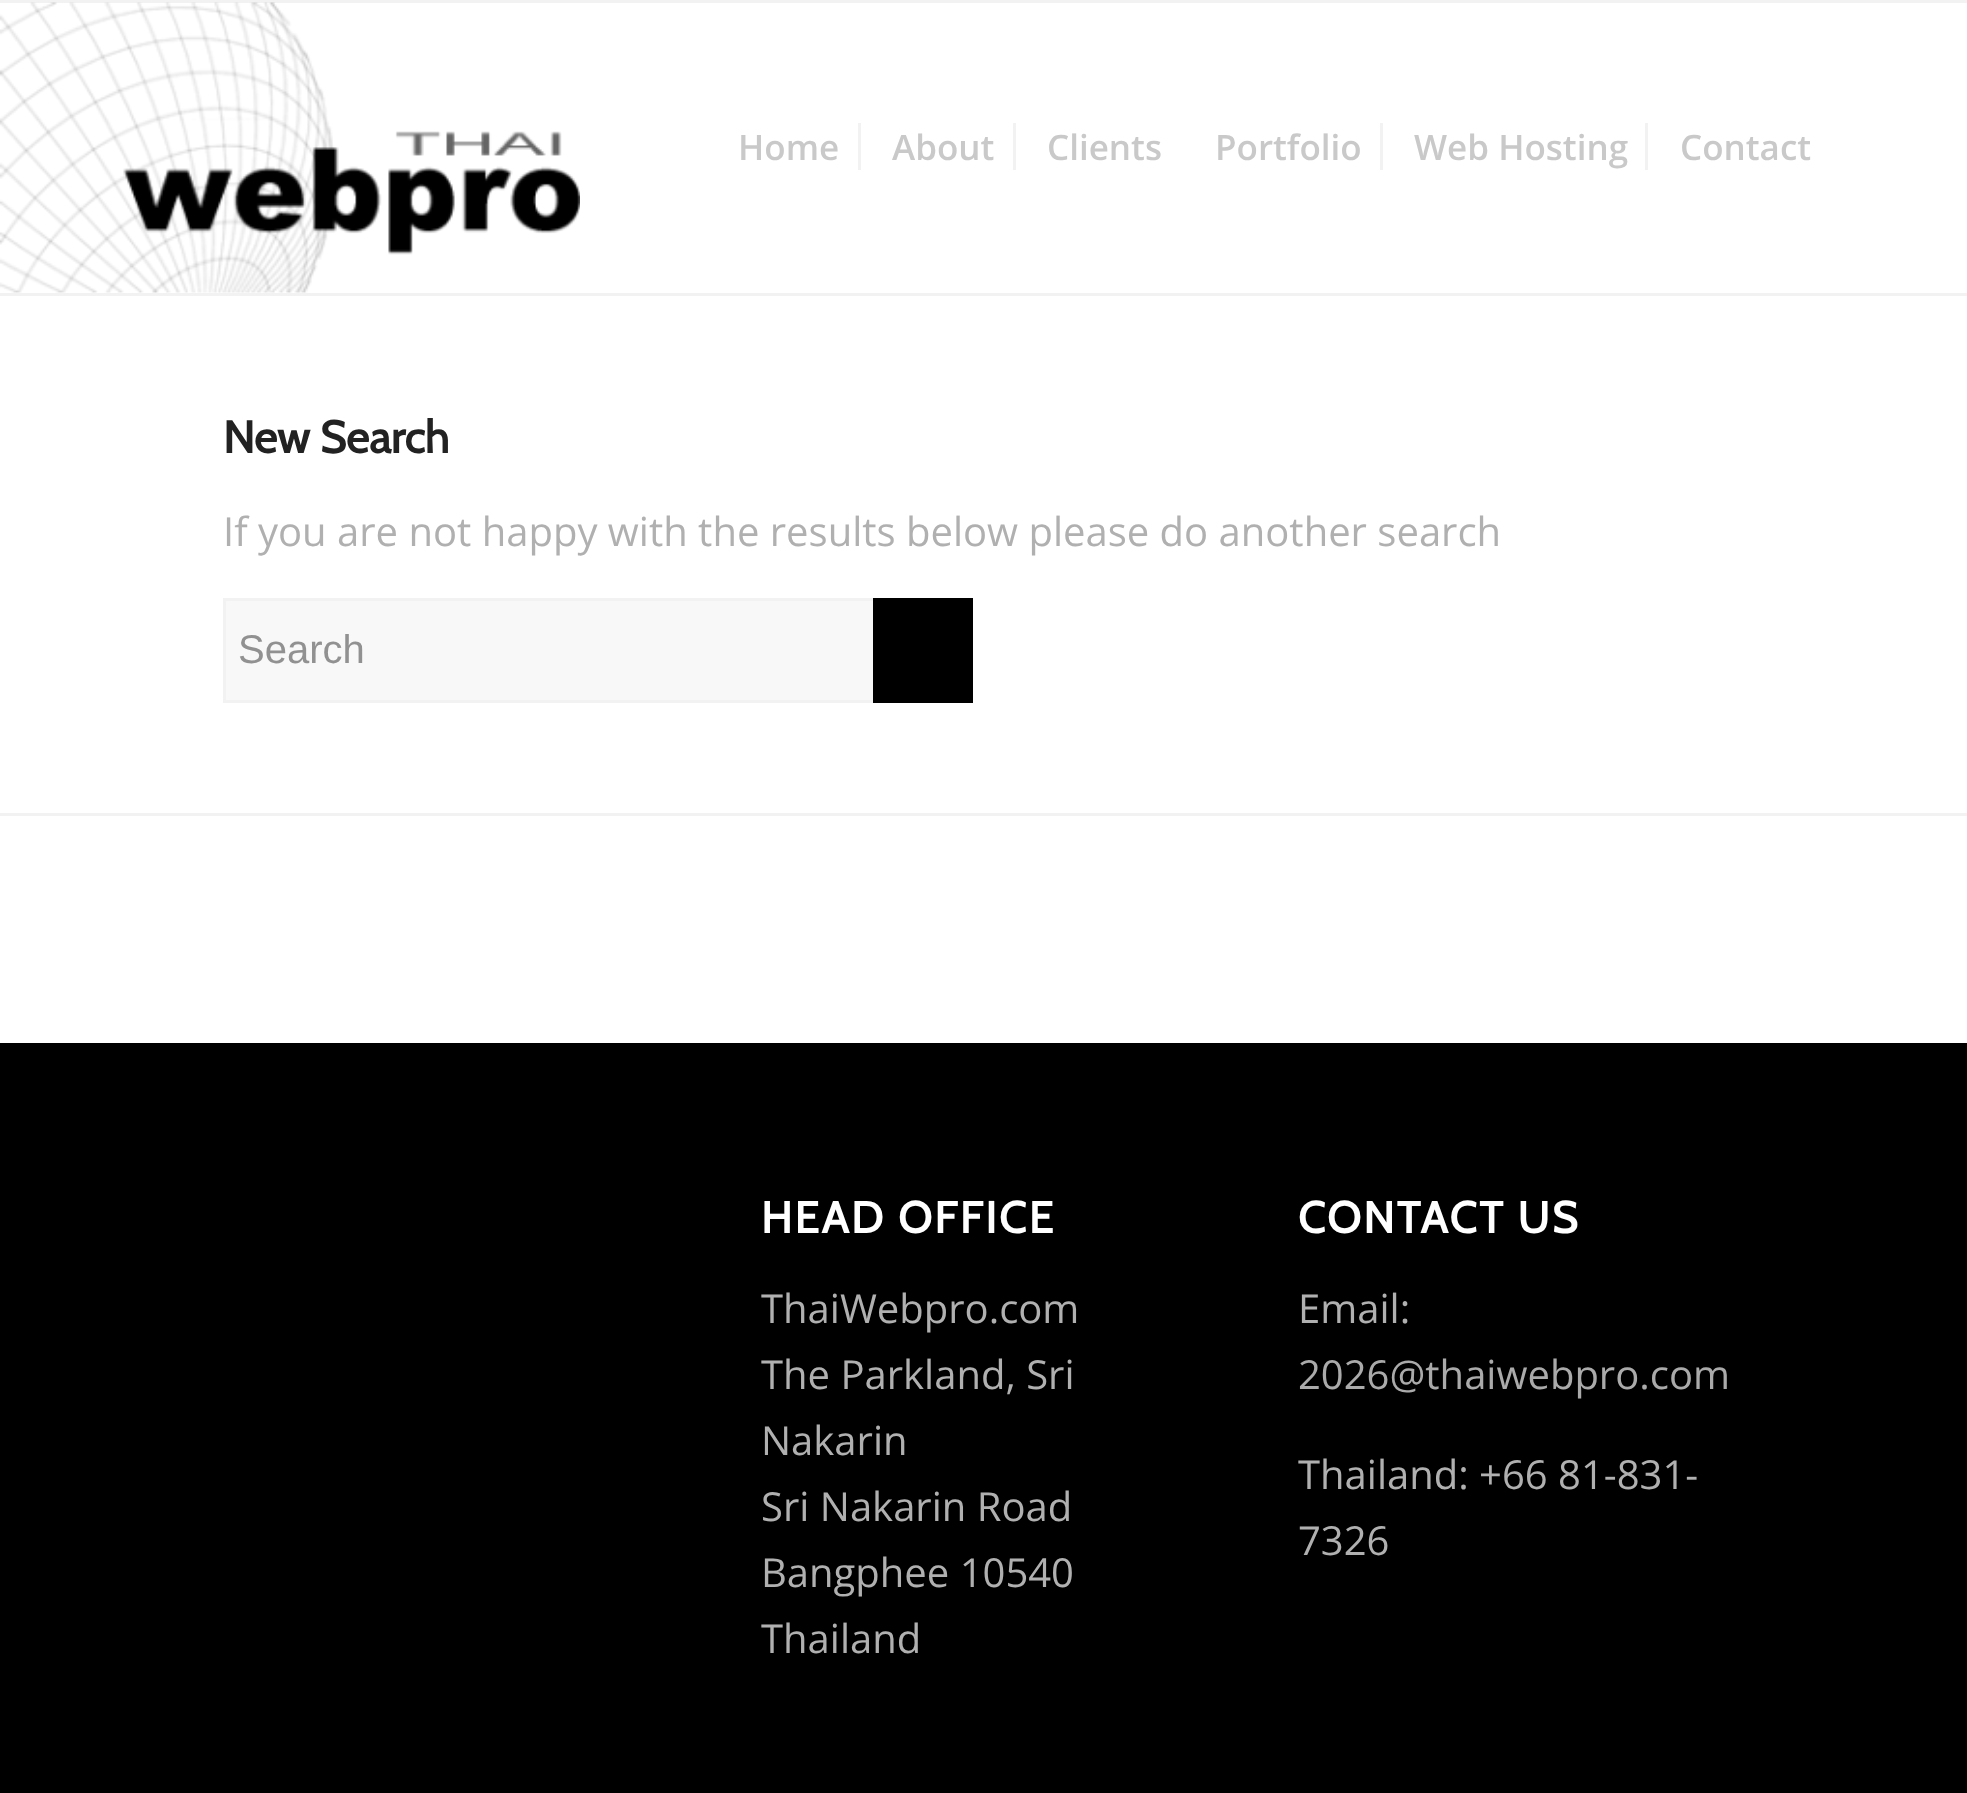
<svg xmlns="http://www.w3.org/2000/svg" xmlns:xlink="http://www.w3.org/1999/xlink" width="1967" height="1793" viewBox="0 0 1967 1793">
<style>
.cls-1{font:600 35px Open Sans;fill:#c9c9c9}
.cls-2{font:bold 45px Cabin;fill:#222222}
.cls-3{font:40px Open Sans;fill:#b0b0b0}
.cls-4{font:40px Liberation Sans;fill:#919191}
.cls-5{font:bold 44px Cabin;letter-spacing:2.5px;fill:#ffffff}
.cls-6{font:40px Open Sans;fill:#aaaaaa}
</style>
<rect width="100%" height="100%" fill="#ffffff"/>
<rect fill="#f2f2f2" x="0" y="0" width="1967" height="3"/>
<rect fill="#f2f2f2" x="0" y="293" width="1967" height="3"/>
<image xlink:href="image0.png" x="0" y="2" width="580" height="291"/>
<rect fill="#f2f2f2" x="858" y="123" width="3" height="47"/>
<rect fill="#f2f2f2" x="1013" y="123" width="3" height="47"/>
<rect fill="#f2f2f2" x="1380" y="123" width="3" height="47"/>
<rect fill="#f2f2f2" x="1645" y="123" width="3" height="47"/>
<rect fill="#f8f8f8" x="226" y="601" width="647" height="99"/>
<rect fill="none" stroke="#f2f2f2" stroke-width="3" x="224.5" y="599.5" width="747" height="102"/>
<rect fill="#000000" x="873" y="598" width="100" height="105"/>
<rect fill="#f2f2f2" x="0" y="813" width="1967" height="3"/>
<rect fill="#000000" x="0" y="1043" width="1967" height="750"/>
<text class="cls-1" x="738" y="160">Home</text>
<text class="cls-1" x="892" y="160">About</text>
<text class="cls-1" x="1047" y="160">Clients</text>
<text class="cls-1" x="1215" y="160">Portfolio</text>
<text class="cls-1" x="1414" y="160">Web Hosting</text>
<text class="cls-1" x="1680" y="160">Contact</text>
<text class="cls-2" x="223" y="453">New Search</text>
<text class="cls-3" x="223" y="546">If you are not happy with the results below please do another search</text>
<text class="cls-4" x="238" y="663">Search</text>
<text class="cls-5" x="761" y="1233">HEAD OFFICE</text>
<text class="cls-3"><tspan x="761" y="1323">ThaiWebpro.com</tspan><tspan x="761" y="1389">The Parkland, Sri</tspan><tspan x="761" y="1455">Nakarin</tspan><tspan x="761" y="1521">Sri Nakarin Road</tspan><tspan x="761" y="1587">Bangphee 10540</tspan><tspan x="761" y="1653">Thailand</tspan></text>
<text class="cls-5" x="1298" y="1233">CONTACT US</text>
<text class="cls-3" x="1298" y="1323">Email:</text>
<text class="cls-6" x="1298" y="1389">2026@thaiwebpro.com</text>
<text class="cls-3"><tspan x="1298" y="1489">Thailand: +66 81-831-</tspan><tspan x="1298" y="1555">7326</tspan></text>
</svg>
